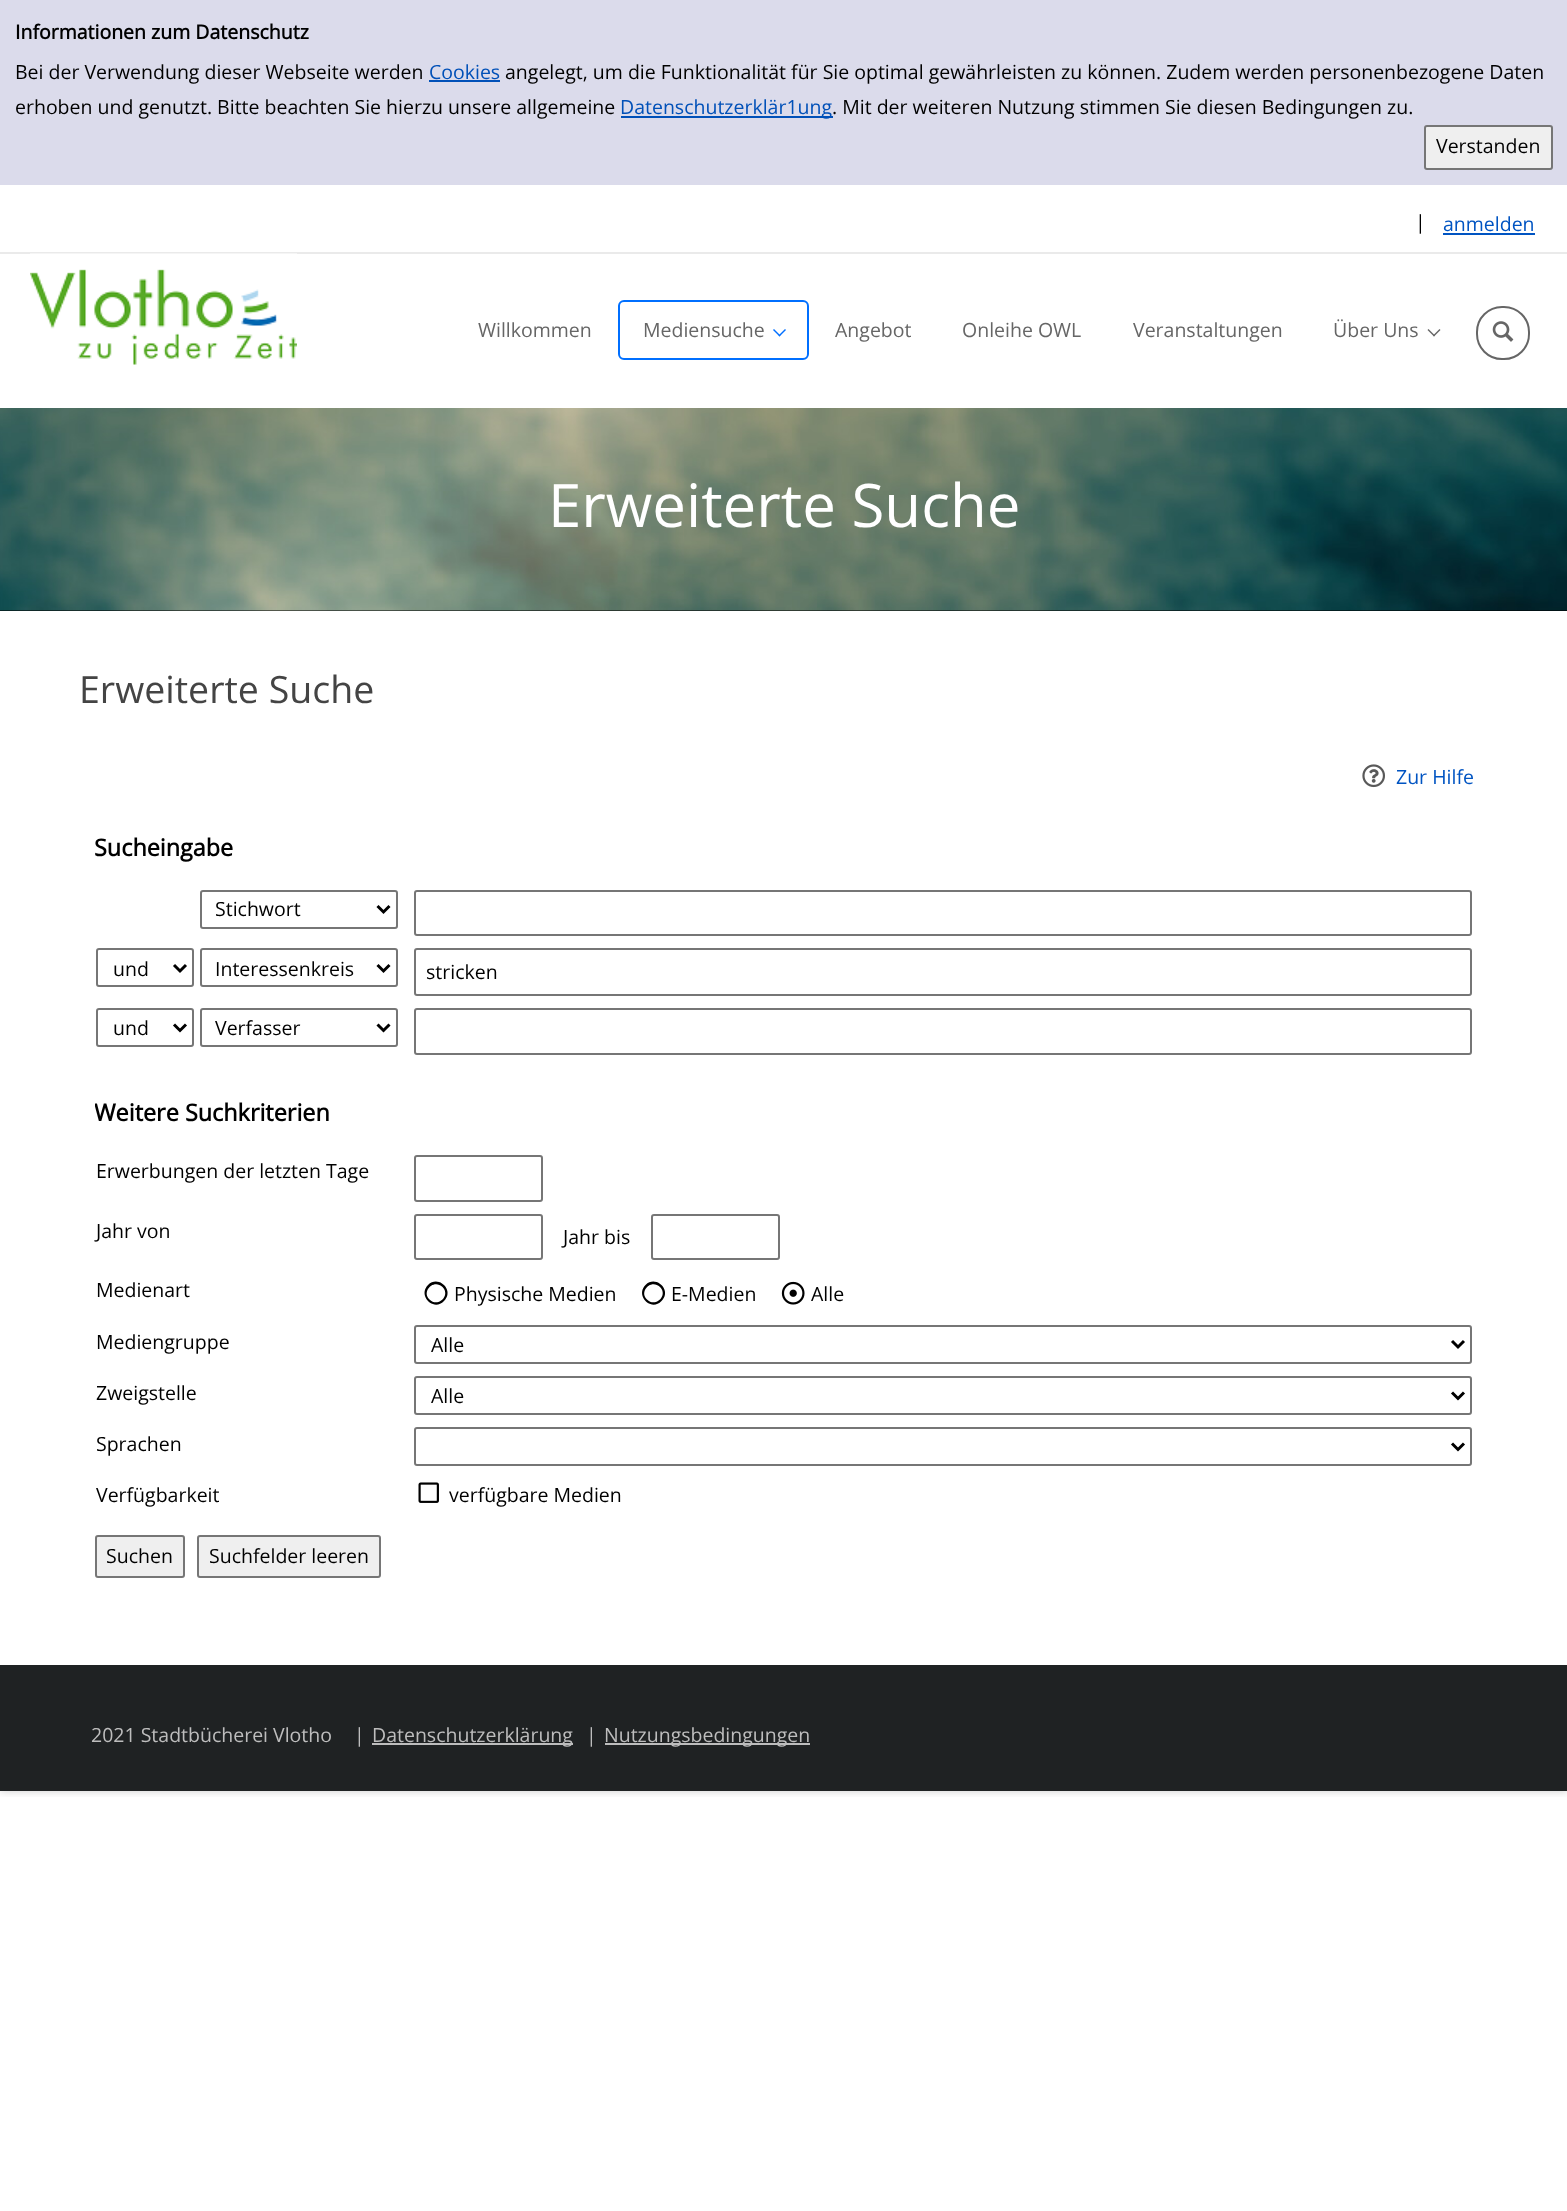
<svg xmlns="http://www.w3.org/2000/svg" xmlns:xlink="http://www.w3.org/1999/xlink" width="1567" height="2211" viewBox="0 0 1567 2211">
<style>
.cls-1{font:bold 19.5px Open Sans;fill:#000000}
.cls-2{font:19.5px Open Sans;fill:#000000}
.cls-3{font:19.5px Open Sans;fill:#0050b8}
.cls-4{font:19.5px Open Sans;fill:#0054c2}
.cls-5{font:19.5px Open Sans;fill:#666666}
.cls-6{font:60px Open Sans;fill:#ffffff}
.cls-7{font:37.5px Open Sans;fill:#444444}
.cls-8{font:bold 23.4px Open Sans;fill:#000000}
.cls-9{font:19.5px Open Sans;fill:#bdbdbd}
</style>
<defs>
<clipPath id="clip1"><rect x="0" y="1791" width="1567" height="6"/></clipPath>
<clipPath id="clip2"><rect x="95" y="884" width="1380" height="636"/></clipPath>
</defs>
<rect width="100%" height="100%" fill="#ffffff"/>
<g clip-path="url(#clip1)">
<rect fill="#000000" fill-opacity="0.2" filter="blur(4.5px)" x="0" y="0" width="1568" height="1791"/>
</g>
<rect fill="#dbdbeb" x="0" y="0" width="1567" height="185"/>
<rect fill="#0050b8" x="429" y="80" width="71" height="2"/>
<rect fill="#0050b8" x="621" y="116" width="212" height="2"/>
<rect fill="#efefef" stroke="#767676" stroke-width="2" x="1425" y="126" width="127" height="43" rx="2"/>
<rect fill="#eaeaea" x="0" y="252" width="1567" height="2"/>
<rect fill="#0054c2" x="1443" y="233" width="92" height="2"/>
<image xlink:href="image0.png" x="30" y="253" width="267" height="112"/>
<rect fill="none" stroke="#006fff" stroke-width="2" x="619" y="301" width="189" height="58" rx="5"/>
<path fill="#006fff" d="M785 329L786 330L779.5 336.5L778.5 335.5Z"/>
<path fill="#006fff" d="M774 329L780.5 335.5L779.5 336.5L773 330Z"/>
<path fill="#666666" d="M1439.5 329L1440.5 330L1434 336.5L1433 335.5Z"/>
<path fill="#666666" d="M1428.5 329L1435 335.5L1434 336.5L1427.5 330Z"/>
<rect fill="none" stroke="#666666" stroke-width="2" x="1477" y="307" width="52" height="52" rx="25"/>
<image xlink:href="image1.png" x="1492" y="321" width="22" height="21"/>
<rect fill="#000000" x="0" y="610" width="1567" height="1"/>
<image xlink:href="image2.png" x="0" y="408" width="1567" height="203"/>
<image xlink:href="image3.png" x="1362" y="764" width="23" height="24"/>
<rect fill="none" stroke="#767676" stroke-width="2" x="201" y="891" width="196" height="37" rx="2"/>
<path fill="none" stroke="#000000" stroke-width="3" d="M377.5 906L383.5 912L389.5 906"/>
<rect fill="none" stroke="#767676" stroke-width="2" x="415" y="891" width="1056" height="44" rx="2"/>
<rect fill="none" stroke="#767676" stroke-width="2" x="97" y="949" width="96" height="37" rx="2"/>
<path fill="none" stroke="#000000" stroke-width="3" d="M174 965L180 971L186 965"/>
<rect fill="none" stroke="#767676" stroke-width="2" x="201" y="949" width="196" height="37" rx="2"/>
<path fill="none" stroke="#000000" stroke-width="3" d="M377.5 965L383.5 971L389.5 965"/>
<rect fill="none" stroke="#767676" stroke-width="2" x="415" y="949" width="1056" height="46" rx="2"/>
<rect fill="none" stroke="#767676" stroke-width="2" x="97" y="1009" width="96" height="37" rx="2"/>
<path fill="none" stroke="#000000" stroke-width="3" d="M174 1024.5L180 1030.5L186 1024.5"/>
<rect fill="none" stroke="#767676" stroke-width="2" x="201" y="1009" width="196" height="37" rx="2"/>
<path fill="none" stroke="#000000" stroke-width="3" d="M377.5 1024.5L383.5 1030.5L389.5 1024.5"/>
<rect fill="none" stroke="#767676" stroke-width="2" x="415" y="1009" width="1056" height="45" rx="2"/>
<rect fill="none" stroke="#767676" stroke-width="2" x="415" y="1156" width="127" height="45" rx="2"/>
<rect fill="none" stroke="#767676" stroke-width="2" x="415" y="1215" width="127" height="44" rx="2"/>
<rect fill="none" stroke="#767676" stroke-width="2" x="652" y="1215" width="127" height="44" rx="2"/>
<path fill="#000000" d="M428 1285C438.5 1274.5 455 1290.5 444 1301C433.5 1312 417.5 1295.5 428 1285ZM429.5 1299.5C438 1308 451 1295.5 442.5 1287C434 1278.5 421 1291 429.5 1299.5Z"/>
<path fill="#000000" d="M645.5 1285C656 1274.5 672.5 1290.5 661.5 1301C651 1312 635 1295.5 645.5 1285ZM647 1299.5C655.5 1308 668.5 1295.5 660 1287C651.5 1278.5 638.5 1291 647 1299.5Z"/>
<image xlink:href="image4.png" x="781" y="1281" width="24" height="24"/>
<rect fill="none" stroke="#767676" stroke-width="2" x="415" y="1326" width="1056" height="37" rx="2"/>
<path fill="none" stroke="#000000" stroke-width="3" d="M1452 1341L1458 1347L1464 1341"/>
<rect fill="none" stroke="#767676" stroke-width="2" x="415" y="1377" width="1056" height="37" rx="2"/>
<path fill="none" stroke="#000000" stroke-width="3" d="M1452 1392.5L1458 1398.5L1464 1392.5"/>
<rect fill="none" stroke="#767676" stroke-width="2" x="415" y="1428" width="1056" height="37" rx="2"/>
<path fill="none" stroke="#000000" stroke-width="3" d="M1452 1443.5L1458 1449.5L1464 1443.5"/>
<image xlink:href="image5.png" x="418" y="1482" width="21" height="21"/>
<rect fill="#efefef" stroke="#767676" stroke-width="2" x="96" y="1536" width="88" height="41" rx="2"/>
<rect fill="#efefef" stroke="#767676" stroke-width="2" x="198" y="1536" width="182" height="41" rx="2"/>
<rect fill="#1f2223" x="0" y="1665" width="1567" height="126"/>
<rect fill="#bdbdbd" x="372" y="1743" width="201" height="2"/>
<rect fill="#bdbdbd" x="605" y="1743" width="205" height="2"/>
<text class="cls-1" x="15" y="39">Informationen zum Datenschutz</text>
<text class="cls-2" x="15" y="79">Bei der Verwendung dieser Webseite werden</text>
<text class="cls-3" x="429" y="79">Cookies</text>
<text class="cls-2" x="505" y="79">angelegt, um die Funktionalität für Sie optimal gewährleisten zu können. Zudem werden personenbezogene Daten</text>
<text class="cls-2" x="15" y="114">erhoben und genutzt. Bitte beachten Sie hierzu unsere allgemeine</text>
<text class="cls-3" x="620" y="114">Datenschutzerklär1ung</text>
<text class="cls-2" x="832" y="114">. Mit der weiteren Nutzung stimmen Sie diesen Bedingungen zu.</text>
<text class="cls-2" x="1436" y="153">Verstanden</text>
<text class="cls-2" x="1415" y="229">|</text>
<text class="cls-4" x="1443" y="231">anmelden</text>
<text class="cls-5" x="478" y="337">Willkommen</text>
<text class="cls-5" x="643" y="337">Mediensuche</text>
<text class="cls-5" x="835" y="337">Angebot</text>
<text class="cls-5" x="962" y="337">Onleihe OWL</text>
<text class="cls-5" x="1133" y="337">Veranstaltungen</text>
<text class="cls-5" x="1333" y="337">Über Uns</text>
<text class="cls-6" x="548" y="527">Erweiterte Suche</text>
<text class="cls-7" x="79" y="703">Erweiterte Suche</text>
<text class="cls-4" x="1396" y="784">Zur Hilfe</text>
<text class="cls-8" x="94" y="856">Sucheingabe</text>
<text class="cls-2" x="215" y="916">Stichwort</text>
<text class="cls-2" x="113" y="976">und</text>
<text class="cls-2" x="215" y="976">Interessenkreis</text>
<text class="cls-2" x="426" y="979">stricken</text>
<text class="cls-2" x="113" y="1035">und</text>
<text class="cls-2" x="215" y="1035">Verfasser</text>
<g clip-path="url(#clip2)">
<text class="cls-8" x="94" y="1121">Weitere Suchkriterien</text>
</g>
<text class="cls-2" x="96" y="1178">Erwerbungen der letzten Tage</text>
<text class="cls-2" x="96" y="1238">Jahr von</text>
<text class="cls-2" x="563" y="1244">Jahr bis</text>
<text class="cls-2" x="96" y="1297">Medienart</text>
<text class="cls-2" x="454" y="1301">Physische Medien</text>
<text class="cls-2" x="671" y="1301">E-Medien</text>
<text class="cls-2" x="811" y="1301">Alle</text>
<text class="cls-2" x="96" y="1349">Mediengruppe</text>
<text class="cls-2" x="431" y="1352">Alle</text>
<text class="cls-2" x="96" y="1400">Zweigstelle</text>
<text class="cls-2" x="431" y="1403">Alle</text>
<text class="cls-2" x="96" y="1451">Sprachen</text>
<text class="cls-2" x="96" y="1502">Verfügbarkeit</text>
<text class="cls-2" x="449" y="1502">verfügbare Medien</text>
<text class="cls-2" x="106" y="1563">Suchen</text>
<text class="cls-2" x="209" y="1563">Suchfelder leeren</text>
<text class="cls-9" x="91" y="1742">2021 Stadtbücherei Vlotho</text>
<text class="cls-9" x="354" y="1742">|</text>
<text class="cls-9" x="372" y="1742">Datenschutzerklärung</text>
<text class="cls-9" x="586" y="1742">|</text>
<text class="cls-9" x="604" y="1742">Nutzungsbedingungen</text>
</svg>
